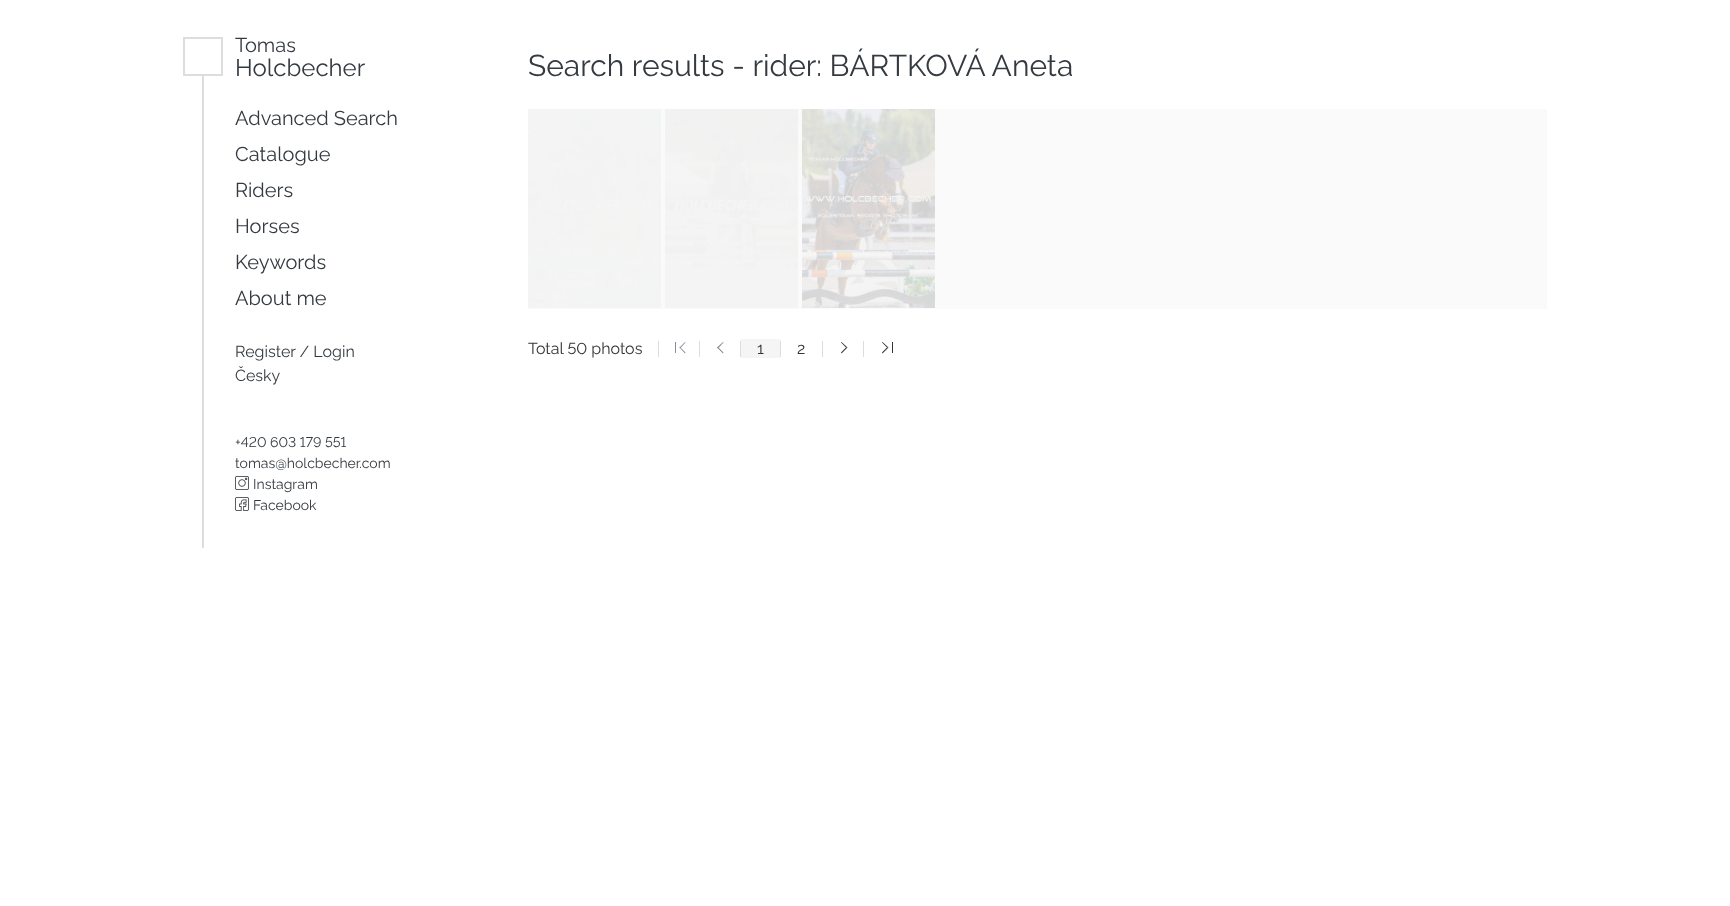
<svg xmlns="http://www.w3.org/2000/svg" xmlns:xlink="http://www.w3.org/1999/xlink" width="1730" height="906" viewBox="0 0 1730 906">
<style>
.cls-1{font:100 20px Raleway;fill:#343a40}
.cls-2{font:100 24px Raleway;fill:#343a40}
.cls-3{font:100 16px Raleway;fill:#343a40}
.cls-4{font:100 14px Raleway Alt;fill:#343a40}
.cls-5{font:100 14px Raleway;fill:#343a40}
.cls-6{font:100 30px Raleway;fill:#343a40}
.cls-7{font:100 16px Raleway Alt;fill:#333333}
.cls-8{font:100 16px Raleway;fill:#333333}
</style>
<rect width="100%" height="100%" fill="#ffffff"/>
<rect fill="#fafafa" x="528" y="109" width="1019" height="200"/>
<rect fill="none" stroke="#dddddd" stroke-width="2" x="184" y="38" width="38" height="37"/>
<rect fill="#dddddd" x="202" y="76" width="2" height="472"/>
<image xlink:href="image0.png" x="235" y="476" width="14" height="14"/>
<image xlink:href="image1.png" x="235" y="497" width="14" height="14"/>
<image xlink:href="image2.png" x="528" y="109" width="133" height="199"/>
<image xlink:href="image3.png" x="665" y="109" width="133" height="199"/>
<image xlink:href="image4.png" x="802" y="109" width="133" height="199"/>
<rect fill="#dddddd" x="658" y="341" width="1" height="16"/>
<rect fill="#dddddd" x="699" y="341" width="1" height="16"/>
<rect fill="#868e96" x="675" y="342" width="1" height="11"/>
<path fill="#868e96" d="M679.5 347.5L685 342L685.5 342.5L680 348.5Z"/>
<path fill="#868e96" d="M679.5 347.5L680 347L685.5 352.5L685 353.5Z"/>
<rect fill="#dddddd" x="740" y="341" width="1" height="16"/>
<path fill="#868e96" d="M717 347.5L723 342L723.5 342.5L718 348.5Z"/>
<path fill="#868e96" d="M717 347.5L718 347L723.5 352.5L723 353.5Z"/>
<rect fill="#dddddd" x="780" y="341" width="1" height="16"/>
<rect fill="#f5f5f5" x="741" y="339" width="39" height="19"/>
<rect fill="#dddddd" x="822" y="341" width="1" height="16"/>
<rect fill="#dddddd" x="863" y="341" width="1" height="16"/>
<path fill="#333333" d="M841.5 342L847.5 347.5H846L841 342.5Z"/>
<path fill="#000000" fill-opacity="0.8" d="M847.5 347.5L841.5 353.5L841 352.5L846 347.5Z"/>
<path fill="#333333" d="M882.5 342L888.5 347.5H887L882 342.5Z"/>
<path fill="#000000" fill-opacity="0.8" d="M888.5 347.5L882.5 353.5L882 352.5L887 347.5Z"/>
<rect fill="#333333" x="892" y="342" width="1" height="11"/>
<text class="cls-1" x="235" y="52">Tomas</text>
<text class="cls-2" x="235" y="76">Holcbecher</text>
<text class="cls-1"><tspan x="235" y="125">Advanced Search</tspan><tspan x="235" y="161">Catalogue</tspan><tspan x="235" y="197">Riders</tspan><tspan x="235" y="233">Horses</tspan><tspan x="235" y="269">Keywords</tspan><tspan x="235" y="305">About me</tspan></text>
<text class="cls-3"><tspan x="235" y="357">Register / Login</tspan><tspan x="235" y="381">Česky</tspan></text>
<text class="cls-4" x="235" y="447">+420 603 179 551</text>
<text class="cls-5" x="235" y="468">tomas@holcbecher.com</text>
<text class="cls-5"><tspan x="253" y="489">Instagram</tspan><tspan x="253" y="510">Facebook</tspan></text>
<text class="cls-6" x="528" y="76">Search results - rider: BÁRTKOVÁ Aneta</text>
<text class="cls-7" x="528" y="354">Total 50 photos</text>
<text class="cls-8" x="757" y="354">1</text>
<text class="cls-8" x="797" y="354">2</text>
</svg>
